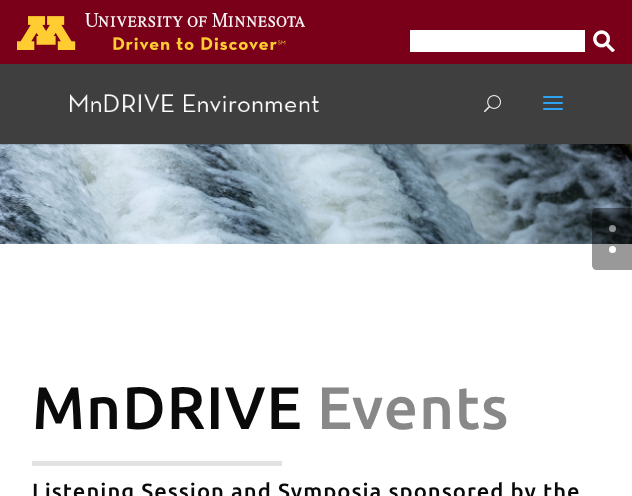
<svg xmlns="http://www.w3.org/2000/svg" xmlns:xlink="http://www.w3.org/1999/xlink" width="632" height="496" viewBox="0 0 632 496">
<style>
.cls-1{font:500 60px Ubuntu;letter-spacing:1px;fill:#0a0a0a}
.cls-2{font:500 60px Ubuntu;letter-spacing:1px;fill:#888888}
.cls-3{font:500 22px Ubuntu;letter-spacing:1px;fill:#0a0a0a}
</style>
<rect width="100%" height="100%" fill="#ffffff"/>
<image xlink:href="image5.png" x="0" y="144" width="632" height="100"/>
<rect fill="#000000" fill-opacity="0.1" x="0" y="144" width="632" height="1"/>
<rect fill="#3f3f3f" x="0" y="64" width="632" height="80"/>
<rect fill="#7a0019" x="0" y="0" width="632" height="64"/>
<image xlink:href="image0.png" x="17" y="13" width="288" height="37"/>
<rect fill="#ffffff" x="410" y="30" width="175" height="22"/>
<image xlink:href="image1.png" x="593" y="30" width="22" height="22"/>
<image xlink:href="image2.png" x="70" y="94" width="250" height="18"/>
<image xlink:href="image3.png" x="484" y="95" width="17" height="18"/>
<image xlink:href="image4.png" x="543" y="96" width="20" height="14"/>
<path fill="#000000" fill-opacity="0.4" d="M597 208H632V270H597C594 270 592 268 592 265V213C592 210 594 208 597 208Z"/>
<circle fill="#ffffff" fill-opacity="0.5" cx="612.5" cy="228.5" r="3.5"/>
<circle fill="#ffffff" cx="612.5" cy="249.5" r="3.5"/>
<rect fill="#e2e2e2" x="32" y="461" width="250" height="5"/>
<text class="cls-1" x="32" y="429">MnDRIVE</text>
<text class="cls-2" x="317" y="429">Events</text>
<text class="cls-3" x="32" y="499">Listening Session and Symposia sponsored by the</text>
</svg>
